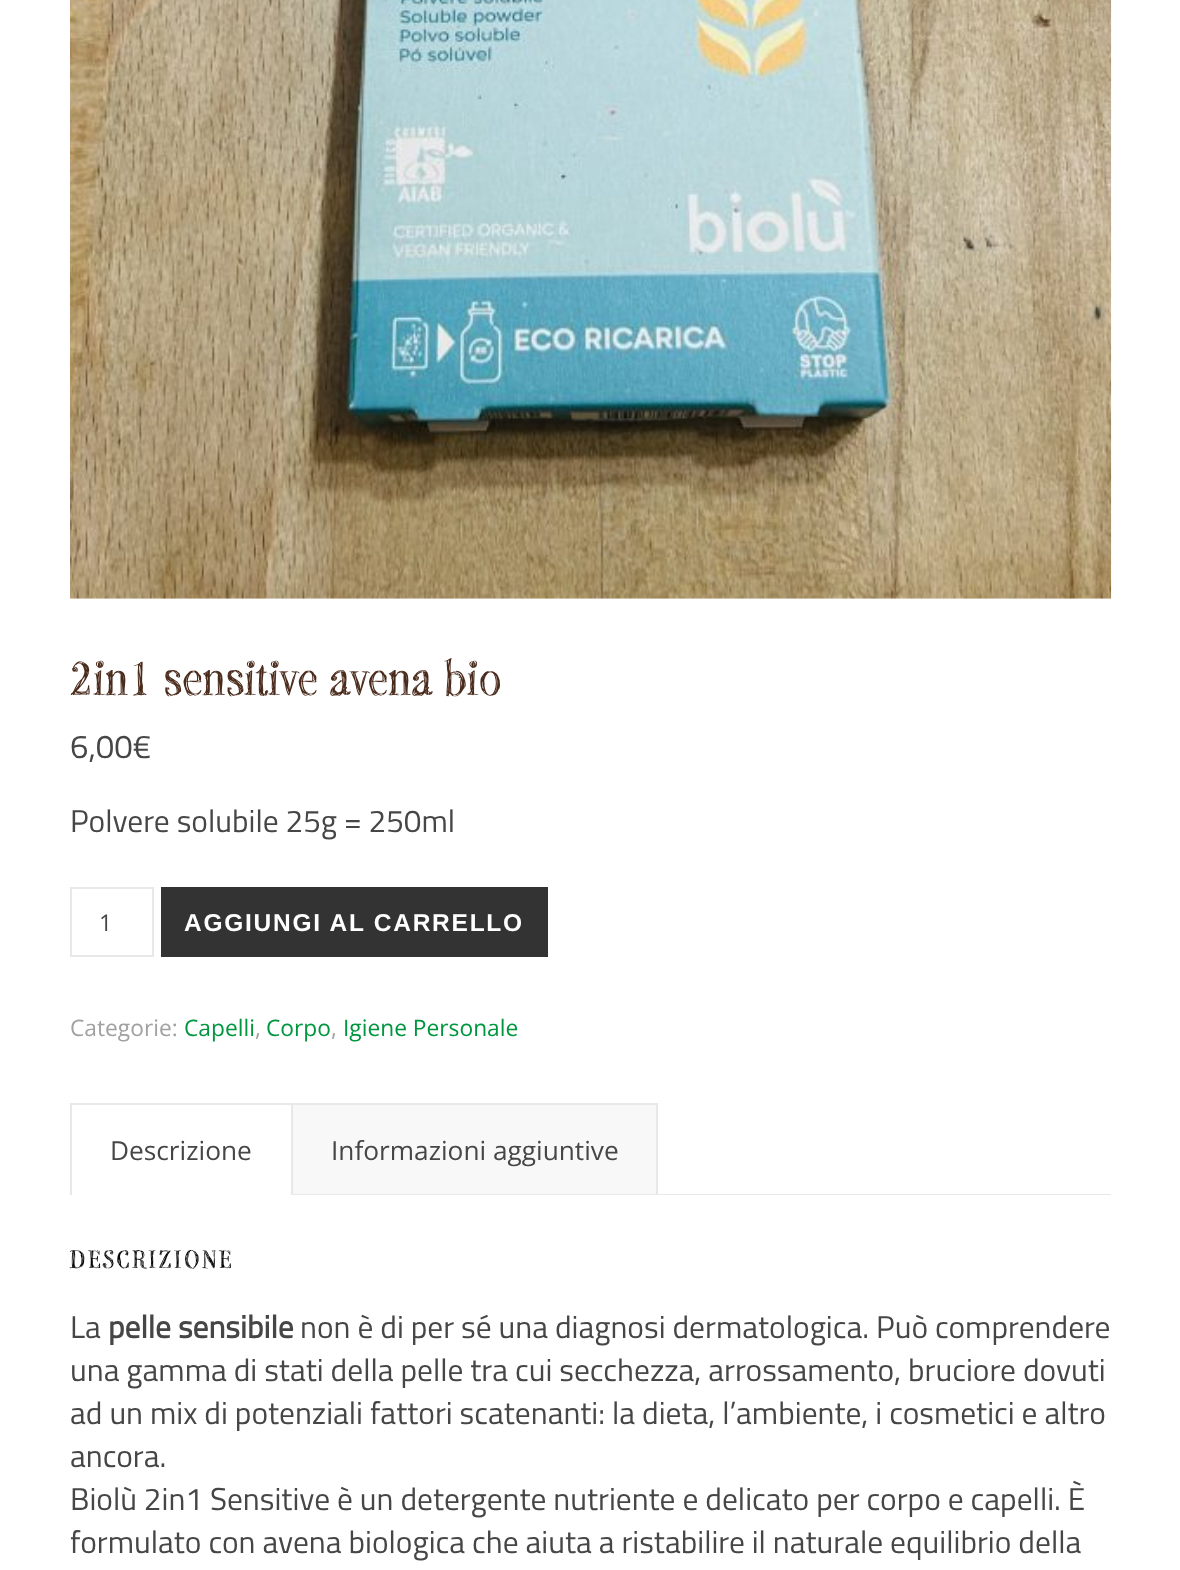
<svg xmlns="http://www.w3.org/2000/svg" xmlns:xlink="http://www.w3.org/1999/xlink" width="1180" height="1570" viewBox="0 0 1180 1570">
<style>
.cls-1{font:52.5px 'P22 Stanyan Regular';fill:#492a1b}
.cls-2{font:33px Titillium Web;fill:#464646}
.cls-3{font:31.5px Titillium Web;fill:#464646}
.cls-4{font:23px Open Sans;fill:#464646}
.cls-5{font:bold 24.5px Liberation Sans;letter-spacing:1.75px;fill:#ffffff}
.cls-6{font:22.75px Open Sans;fill:#a1a1a1}
.cls-7{font:22.75px Open Sans;fill:#009640}
.cls-8{font:26.25px Open Sans;fill:#464646}
.cls-9{font:28px 'P22 Stanyan Regular';letter-spacing:2.6px;fill:#030303}
.cls-10{font:bold 31.5px Titillium Web;fill:#464646}
</style>
<rect width="100%" height="100%" fill="#ffffff"/>
<image xlink:href="image0.png" x="70" y="0" width="1042" height="599"/>
<rect fill="none" stroke="#e8e8e8" stroke-width="2" x="71" y="888" width="82" height="68"/>
<rect fill="#333333" x="161" y="887" width="387" height="70"/>
<rect fill="#e8e8e8" x="70" y="1103" width="588" height="2"/>
<rect fill="#e8e8e8" x="291" y="1103" width="2" height="92"/>
<rect fill="#e8e8e8" x="70" y="1103" width="2" height="92"/>
<rect fill="#f8f8f8" x="293" y="1105" width="363" height="89"/>
<rect fill="#e8e8e8" x="656" y="1103" width="2" height="92"/>
<rect fill="#e8e8e8" x="293" y="1194" width="818" height="1"/>
<text class="cls-1" x="70" y="695">2in1 sensitive avena bio</text>
<text class="cls-2" x="70" y="758">6,00€</text>
<text class="cls-3" x="70" y="832">Polvere solubile 25g = 250ml</text>
<text class="cls-4" x="99" y="931">1</text>
<text class="cls-5" x="184" y="931">AGGIUNGI AL CARRELLO</text>
<text class="cls-6" x="70" y="1036">Categorie:</text>
<text class="cls-7" x="184" y="1036">Capelli</text>
<text class="cls-6" x="255" y="1036">,</text>
<text class="cls-7" x="266" y="1036">Corpo</text>
<text class="cls-6" x="331" y="1036">,</text>
<text class="cls-7" x="343" y="1036">Igiene Personale</text>
<text class="cls-8" x="110" y="1160">Descrizione</text>
<text class="cls-8" x="331" y="1160">Informazioni aggiuntive</text>
<text class="cls-9" x="70" y="1268">DESCRIZIONE</text>
<text class="cls-3" x="70" y="1338">La</text>
<text class="cls-10" x="108" y="1338">pelle sensibile</text>
<text class="cls-3" x="300" y="1338">non è di per sé una diagnosi dermatologica. Può comprendere</text>
<text class="cls-3"><tspan x="70" y="1381">una gamma di stati della pelle tra cui secchezza, arrossamento, bruciore dovuti</tspan><tspan x="70" y="1424">ad un mix di potenziali fattori scatenanti: la dieta, l’ambiente, i cosmetici e altro</tspan><tspan x="70" y="1467">ancora.</tspan><tspan x="70" y="1510">Biolù 2in1 Sensitive è un detergente nutriente e delicato per corpo e capelli. È</tspan><tspan x="70" y="1553">formulato con avena biologica che aiuta a ristabilire il naturale equilibrio della</tspan></text>
</svg>
